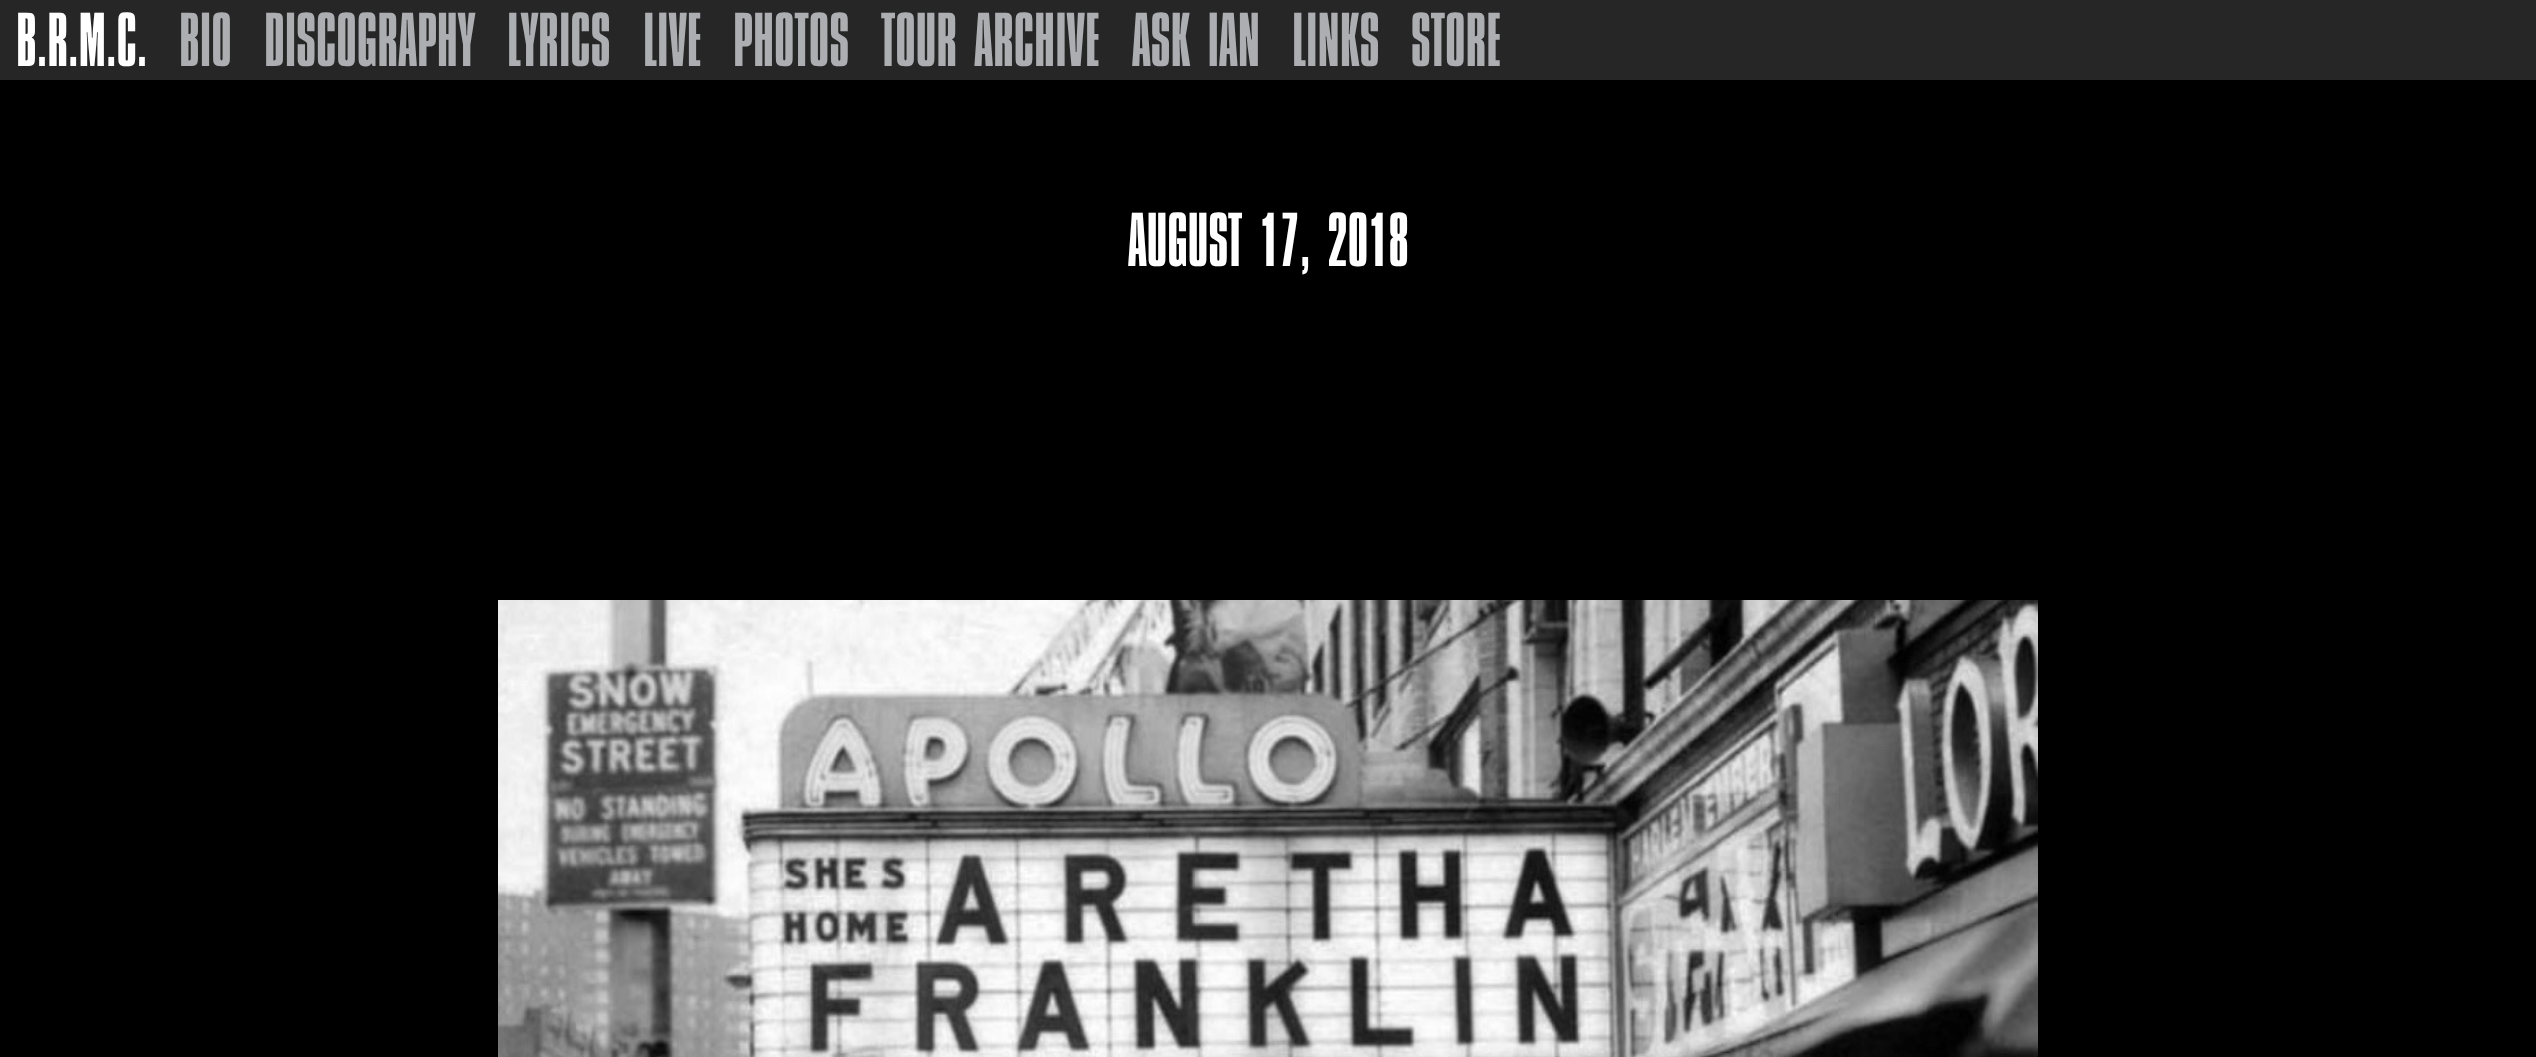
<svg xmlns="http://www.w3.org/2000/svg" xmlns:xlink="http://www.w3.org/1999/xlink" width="2536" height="1057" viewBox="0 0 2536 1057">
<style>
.cls-1{font:300 80px 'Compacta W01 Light';fill:#ffffff}
.cls-2{font:300 80px 'Compacta W01 Light';fill:#acaeb1}
</style>
<rect width="100%" height="100%" fill="#000000"/>
<rect fill="#262626" x="0" y="0" width="2536" height="80"/>
<image xlink:href="image0.png" x="498" y="600" width="1540" height="457"/>
<text class="cls-1" x="16" y="66">B.R.M.C.</text>
<text class="cls-2" x="179" y="66">BIO</text>
<text class="cls-2" x="264" y="66">DISCOGRAPHY</text>
<text class="cls-2" x="507" y="66">LYRICS</text>
<text class="cls-2" x="643" y="66">LIVE</text>
<text class="cls-2" x="733" y="66">PHOTOS</text>
<text class="cls-2" x="881" y="66">TOUR ARCHIVE</text>
<text class="cls-2" x="1132" y="66">ASK IAN</text>
<text class="cls-2" x="1292" y="66">LINKS</text>
<text class="cls-2" x="1411" y="66">STORE</text>
<text class="cls-1" x="1128" y="266">AUGUST 17, 2018</text>
</svg>
